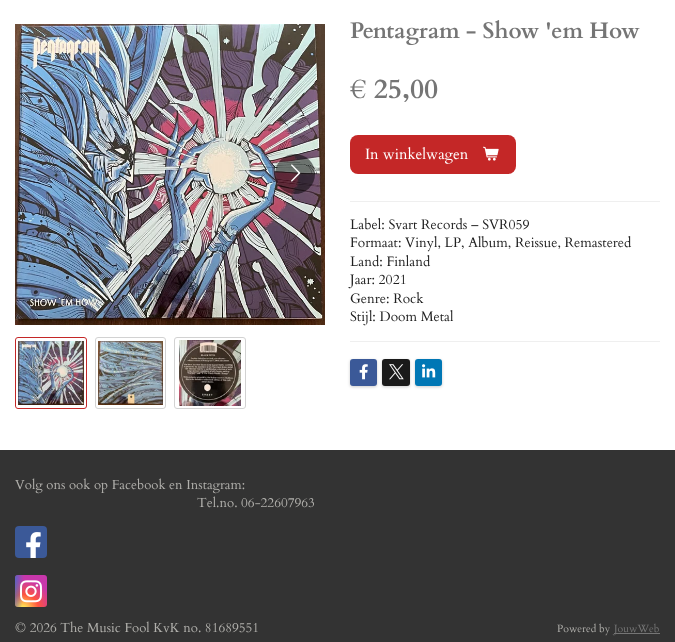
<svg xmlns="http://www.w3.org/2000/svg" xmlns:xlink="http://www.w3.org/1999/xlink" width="675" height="642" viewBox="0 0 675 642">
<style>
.cls-1{font:bold 22.5px Cardo;fill:#757575}
.cls-2{font:bold 27.5px Cardo;fill:#757575}
.cls-3{font:15px Cardo;fill:#ffffff}
.cls-4{font:13.7px Cardo;fill:#202020}
.cls-5{font:13.25px Cardo;fill:#b1b0ac}
.cls-6{font:10.5px Cardo;fill:#b1b0ac}
.cls-7{font:10.5px Cardo;fill:#757575}
</style>
<defs>
<radialGradient id="g1" gradientUnits="userSpaceOnUse" cx="0" cy="0" r="1" gradientTransform="matrix(31 0 0 29 23 609)"><stop offset="0" stop-color="#ffdd55"/><stop offset="0.1" stop-color="#ffdd55"/><stop offset="0.5" stop-color="#ff543e"/><stop offset="1" stop-color="#c837ab"/></radialGradient>
<radialGradient id="g2" gradientUnits="userSpaceOnUse" cx="0" cy="0" r="1" gradientTransform="matrix(14 0 0 58 10 577)"><stop offset="0" stop-color="#3771c8"/><stop offset="0.13" stop-color="#3771c8"/><stop offset="1" stop-color="#3771c8" stop-opacity="0"/></radialGradient>
</defs>
<rect width="100%" height="100%" fill="#ffffff"/>
<image xlink:href="image0.png" x="15" y="24" width="310" height="301"/>
<circle fill="#000000" fill-opacity="0.5" cx="295" cy="174" r="20"/>
<image xlink:href="image1.png" x="291" y="164" width="10" height="18"/>
<rect fill="none" stroke="#c42727" x="15.5" y="337.5" width="71" height="71" rx="2.5"/>
<image xlink:href="image2.png" x="18" y="341" width="66" height="64"/>
<rect fill="none" stroke="#d2d2d2" x="95.5" y="337.5" width="70" height="71" rx="2.5"/>
<image xlink:href="image3.png" x="98" y="341" width="65" height="64"/>
<rect fill="none" stroke="#d2d2d2" x="174.5" y="337.5" width="71" height="71" rx="2.5"/>
<image xlink:href="image4.png" x="179" y="340" width="62" height="66"/>
<rect fill="#c42727" x="350" y="135" width="166" height="39" rx="8"/>
<image xlink:href="image5.png" x="483" y="146" width="16" height="15"/>
<rect fill="#efefef" x="350" y="201" width="310" height="1"/>
<rect fill="#efefef" x="350" y="341" width="310" height="1"/>
<rect fill="#000000" fill-opacity="0.2" filter="blur(1.5px)" x="350" y="360" width="27" height="27" rx="3"/>
<rect fill="#3b5998" x="350" y="359" width="27" height="27" rx="3"/>
<image xlink:href="image6.png" x="359" y="364" width="9" height="16"/>
<rect fill="#000000" fill-opacity="0.2" filter="blur(1.5px)" x="382" y="360" width="28" height="27" rx="3"/>
<rect fill="#1a1a1a" x="382" y="359" width="28" height="27" rx="3"/>
<image xlink:href="image7.png" x="389" y="364" width="15" height="16"/>
<rect fill="#000000" fill-opacity="0.2" filter="blur(1.5px)" x="415" y="360" width="27" height="27" rx="3"/>
<rect fill="#0077b5" x="415" y="359" width="27" height="27" rx="3"/>
<image xlink:href="image8.png" x="422" y="364" width="14" height="14"/>
<rect fill="#333333" x="0" y="450" width="675" height="192"/>
<rect fill="#3b5998" x="15" y="526" width="32" height="32" rx="4"/>
<image xlink:href="image9.png" x="26" y="532" width="15" height="26"/>
<rect fill="url(#g1)" x="15" y="575" width="32" height="32" rx="3"/>
<rect fill="url(#g2)" x="15" y="575" width="32" height="32" rx="3"/>
<image xlink:href="image10.png" x="20" y="580" width="22" height="23"/>
<rect fill="#757575" x="614" y="633" width="46" height="1"/>
<text class="cls-1" x="350" y="38">Pentagram - Show 'em How</text>
<text class="cls-2" x="350" y="98">€ 25,00</text>
<text class="cls-3" x="365" y="159">In winkelwagen</text>
<text class="cls-4"><tspan x="350" y="229">Label: Svart Records – SVR059</tspan><tspan x="350" y="247">Formaat: Vinyl, LP, Album, Reissue, Remastered</tspan><tspan x="350" y="266">Land: Finland</tspan><tspan x="350" y="284">Jaar: 2021</tspan><tspan x="350" y="303">Genre: Rock</tspan><tspan x="350" y="321">Stijl: Doom Metal</tspan></text>
<text class="cls-5" x="15" y="489">Volg ons ook op Facebook en Instagram:</text>
<text class="cls-5" x="197" y="507">Tel.no. 06-22607963</text>
<text class="cls-5" x="15" y="632">© 2026 The Music Fool KvK no. 81689551</text>
<text class="cls-6" x="557" y="632">Powered by</text>
<text class="cls-7" x="614" y="632">JouwWeb</text>
</svg>
